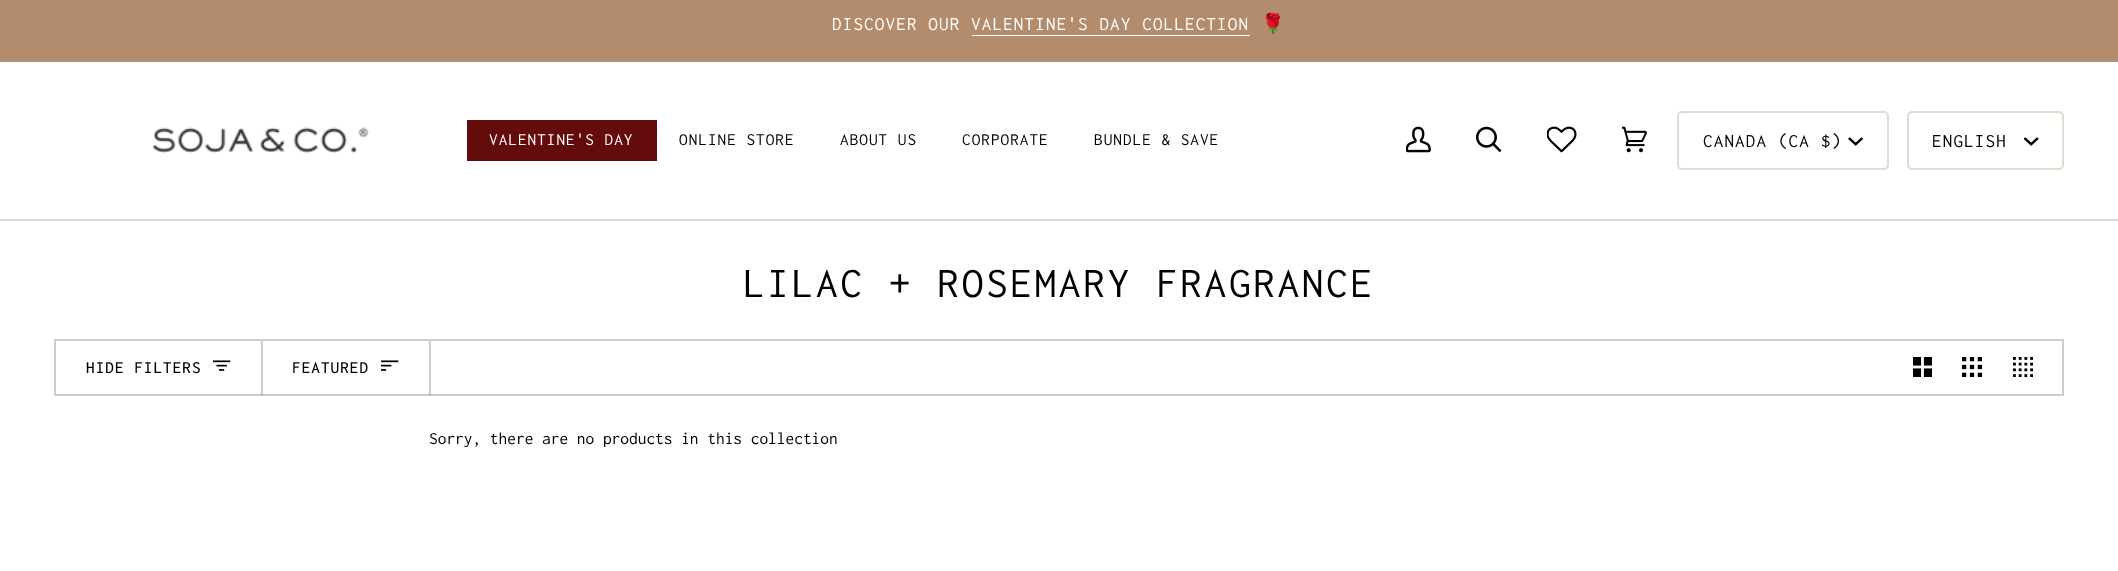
<svg xmlns="http://www.w3.org/2000/svg" xmlns:xlink="http://www.w3.org/1999/xlink" width="2118" height="571" viewBox="0 0 2118 571">
<style>
.cls-1{font:19.1px Inconsolata;letter-spacing:1.15px;fill:#ffffff}
.cls-2{font:19.1px Noto Color Emoji;letter-spacing:1.15px;fill:#ffffff}
.cls-3{font:17.25px Inconsolata;letter-spacing:1px;fill:#ffffff}
.cls-4{font:17.25px Inconsolata;letter-spacing:1px;fill:#000000}
.cls-5{font:19.1px Inconsolata;letter-spacing:1.15px;fill:#000000}
.cls-6{font:43.4px Inconsolata;letter-spacing:2.6px;fill:#000000}
.cls-7{font:500 17.25px Inconsolata;letter-spacing:1px;fill:#000000}
.cls-8{font:17.4px Inconsolata;fill:#000000}
</style>
<rect width="100%" height="100%" fill="#ffffff"/>
<rect fill="#b38c6d" x="0" y="0" width="2118" height="62"/>
<path fill="#ffffff" d="M972 35V37V36H1250V37V35Z"/>
<rect fill="#e1dbd0" x="0" y="219" width="2118" height="2"/>
<image xlink:href="image0.png" x="152" y="127" width="217" height="27"/>
<rect fill="#640c0c" x="467" y="120" width="190" height="41"/>
<image xlink:href="image1.png" x="1406" y="126" width="25" height="27"/>
<image xlink:href="image2.png" x="1476" y="126" width="26" height="27"/>
<image xlink:href="image3.png" x="1547" y="126" width="30" height="27"/>
<image xlink:href="image4.png" x="1622" y="126" width="25" height="27"/>
<rect fill="none" stroke="#e1dbd0" stroke-width="2" x="1678" y="112" width="210" height="57" rx="4"/>
<image xlink:href="image5.png" x="1848" y="137" width="15" height="9"/>
<rect fill="none" stroke="#e1dbd0" stroke-width="2" x="1908" y="112" width="155" height="57" rx="4"/>
<image xlink:href="image6.png" x="2024" y="137" width="15" height="9"/>
<rect fill="none" stroke="#cccccc" stroke-width="2" x="55" y="340" width="2008" height="55"/>
<rect fill="#000000" fill-opacity="0.2" x="261" y="341" width="2" height="54"/>
<image xlink:href="image7.png" x="213" y="360" width="18" height="11"/>
<rect fill="#000000" fill-opacity="0.2" x="429" y="341" width="2" height="54"/>
<image xlink:href="image8.png" x="381" y="360" width="18" height="11"/>
<image xlink:href="image9.png" x="1913" y="357" width="19" height="20"/>
<image xlink:href="image10.png" x="1962" y="357" width="20" height="20"/>
<image xlink:href="image11.png" x="2013" y="357" width="20" height="20"/>
<text class="cls-1" x="832" y="30">DISCOVER OUR VALENTINE'S DAY COLLECTION</text>
<text class="cls-2" x="1261" y="30">🌹</text>
<text class="cls-3" x="489" y="145">VALENTINE'S DAY</text>
<text class="cls-4" x="679" y="145">ONLINE STORE</text>
<text class="cls-4" x="840" y="145">ABOUT US</text>
<text class="cls-4" x="962" y="145">CORPORATE</text>
<text class="cls-4" x="1094" y="145">BUNDLE &amp; SAVE</text>
<text class="cls-5" x="1703" y="147">CANADA (CA $)</text>
<text class="cls-5" x="1932" y="147">ENGLISH</text>
<text class="cls-6" x="743" y="297">LILAC + ROSEMARY FRAGRANCE</text>
<text class="cls-7" x="86" y="373">HIDE FILTERS</text>
<text class="cls-7" x="292" y="373">FEATURED</text>
<text class="cls-8" x="429" y="444">Sorry, there are no products in this collection</text>
</svg>
